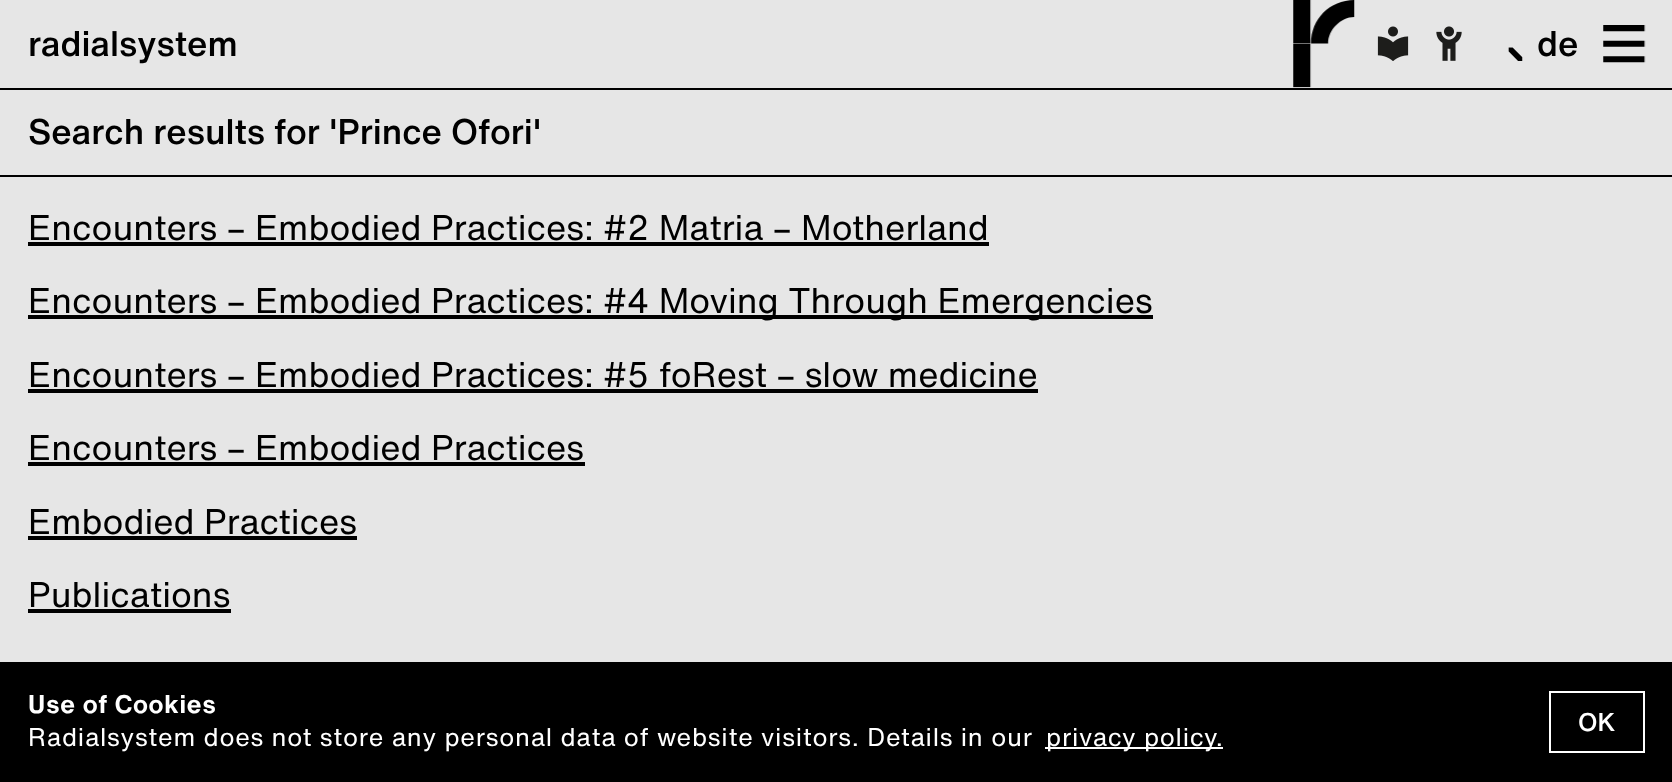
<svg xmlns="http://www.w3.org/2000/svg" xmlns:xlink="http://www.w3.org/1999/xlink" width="1672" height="782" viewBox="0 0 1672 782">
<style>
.cls-1{font:500 35px 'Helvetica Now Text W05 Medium';fill:#000000}
.cls-2{font:35px 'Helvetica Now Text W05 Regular';fill:#000000}
.cls-3{font:bold 25.2px 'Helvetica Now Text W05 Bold';letter-spacing:0.75px;fill:#ffffff}
.cls-4{font:25.2px 'Helvetica Now Text W05 Regular';letter-spacing:0.75px;fill:#ffffff}
.cls-5{font:500 25.2px 'Helvetica Now Text W05 Medium';fill:#ffffff}
</style>
<rect width="100%" height="100%" fill="#e6e6e6"/>
<rect fill="#000000" x="0" y="88" width="1672" height="2"/>
<image xlink:href="image0.png" x="1293" y="0" width="62" height="88"/>
<image xlink:href="image1.png" x="1377" y="26" width="32" height="35"/>
<image xlink:href="image2.png" x="1436" y="26" width="26" height="35"/>
<image xlink:href="image3.png" x="1508" y="47" width="15" height="14"/>
<image xlink:href="image4.png" x="1603" y="25" width="43" height="38"/>
<rect fill="#000000" x="0" y="175" width="1672" height="2"/>
<rect fill="#000000" x="28" y="242" width="961" height="4"/>
<rect fill="#000000" x="28" y="315" width="1125" height="4"/>
<rect fill="#000000" x="28" y="389" width="1010" height="4"/>
<rect fill="#000000" x="28" y="462" width="557" height="4"/>
<rect fill="#000000" x="28" y="536" width="329" height="4"/>
<rect fill="#000000" x="28" y="609" width="203" height="4"/>
<rect fill="#000000" x="0" y="662" width="1672" height="120"/>
<rect fill="#ffffff" x="1045" y="747" width="178" height="2"/>
<rect fill="none" stroke="#ffffff" stroke-width="2" x="1550" y="692" width="94" height="60"/>
<text class="cls-1" x="28" y="56">radialsystem</text>
<text class="cls-1" x="1537" y="56">de</text>
<text class="cls-1" x="28" y="144">Search results for 'Prince Ofori'</text>
<text class="cls-2" x="28" y="240">Encounters – Embodied Practices: #2 Matria – Motherland</text>
<text class="cls-2" x="28" y="313">Encounters – Embodied Practices: #4 Moving Through Emergencies</text>
<text class="cls-2" x="28" y="387">Encounters – Embodied Practices: #5 foRest – slow medicine</text>
<text class="cls-2" x="28" y="460">Encounters – Embodied Practices</text>
<text class="cls-2" x="28" y="534">Embodied Practices</text>
<text class="cls-2" x="28" y="607">Publications</text>
<text class="cls-3" x="28" y="713">Use of Cookies</text>
<text class="cls-4" x="28" y="746">Radialsystem does not store any personal data of website visitors. Details in our</text>
<text class="cls-4" x="1046" y="746">privacy policy.</text>
<text class="cls-5" x="1578" y="731">OK</text>
</svg>
